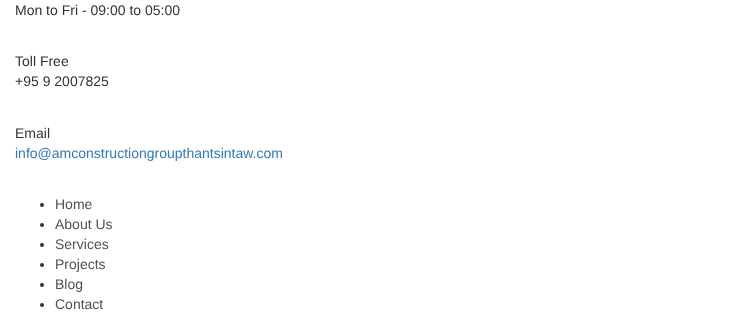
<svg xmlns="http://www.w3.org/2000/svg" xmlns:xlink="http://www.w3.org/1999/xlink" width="730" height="322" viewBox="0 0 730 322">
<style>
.cls-1{font:14px Liberation Sans;fill:#333333}
.cls-2{font:14px Liberation Sans;fill:#337ab7}
.cls-3{font:14px Liberation Sans;fill:#515151}
</style>
<rect width="100%" height="100%" fill="#ffffff"/>
<circle fill="#333333" cx="42" cy="205" r="2"/>
<circle fill="#333333" cx="42" cy="225" r="2"/>
<circle fill="#333333" cx="42" cy="245" r="2"/>
<circle fill="#333333" cx="42" cy="265" r="2"/>
<circle fill="#333333" cx="42" cy="285" r="2"/>
<circle fill="#333333" cx="42" cy="305" r="2"/>
<text class="cls-1" x="15" y="15">Mon to Fri - 09:00 to 05:00</text>
<text class="cls-1"><tspan x="15" y="66">Toll Free</tspan><tspan x="15" y="86">+95 9 2007825</tspan></text>
<text class="cls-1" x="15" y="138">Email</text>
<text class="cls-2" x="15" y="158">info@amconstructiongroupthantsintaw.com</text>
<text class="cls-3"><tspan x="55" y="209">Home</tspan><tspan x="55" y="229">About Us</tspan><tspan x="55" y="249">Services</tspan><tspan x="55" y="269">Projects</tspan><tspan x="55" y="289">Blog</tspan><tspan x="55" y="309">Contact</tspan></text>
</svg>
